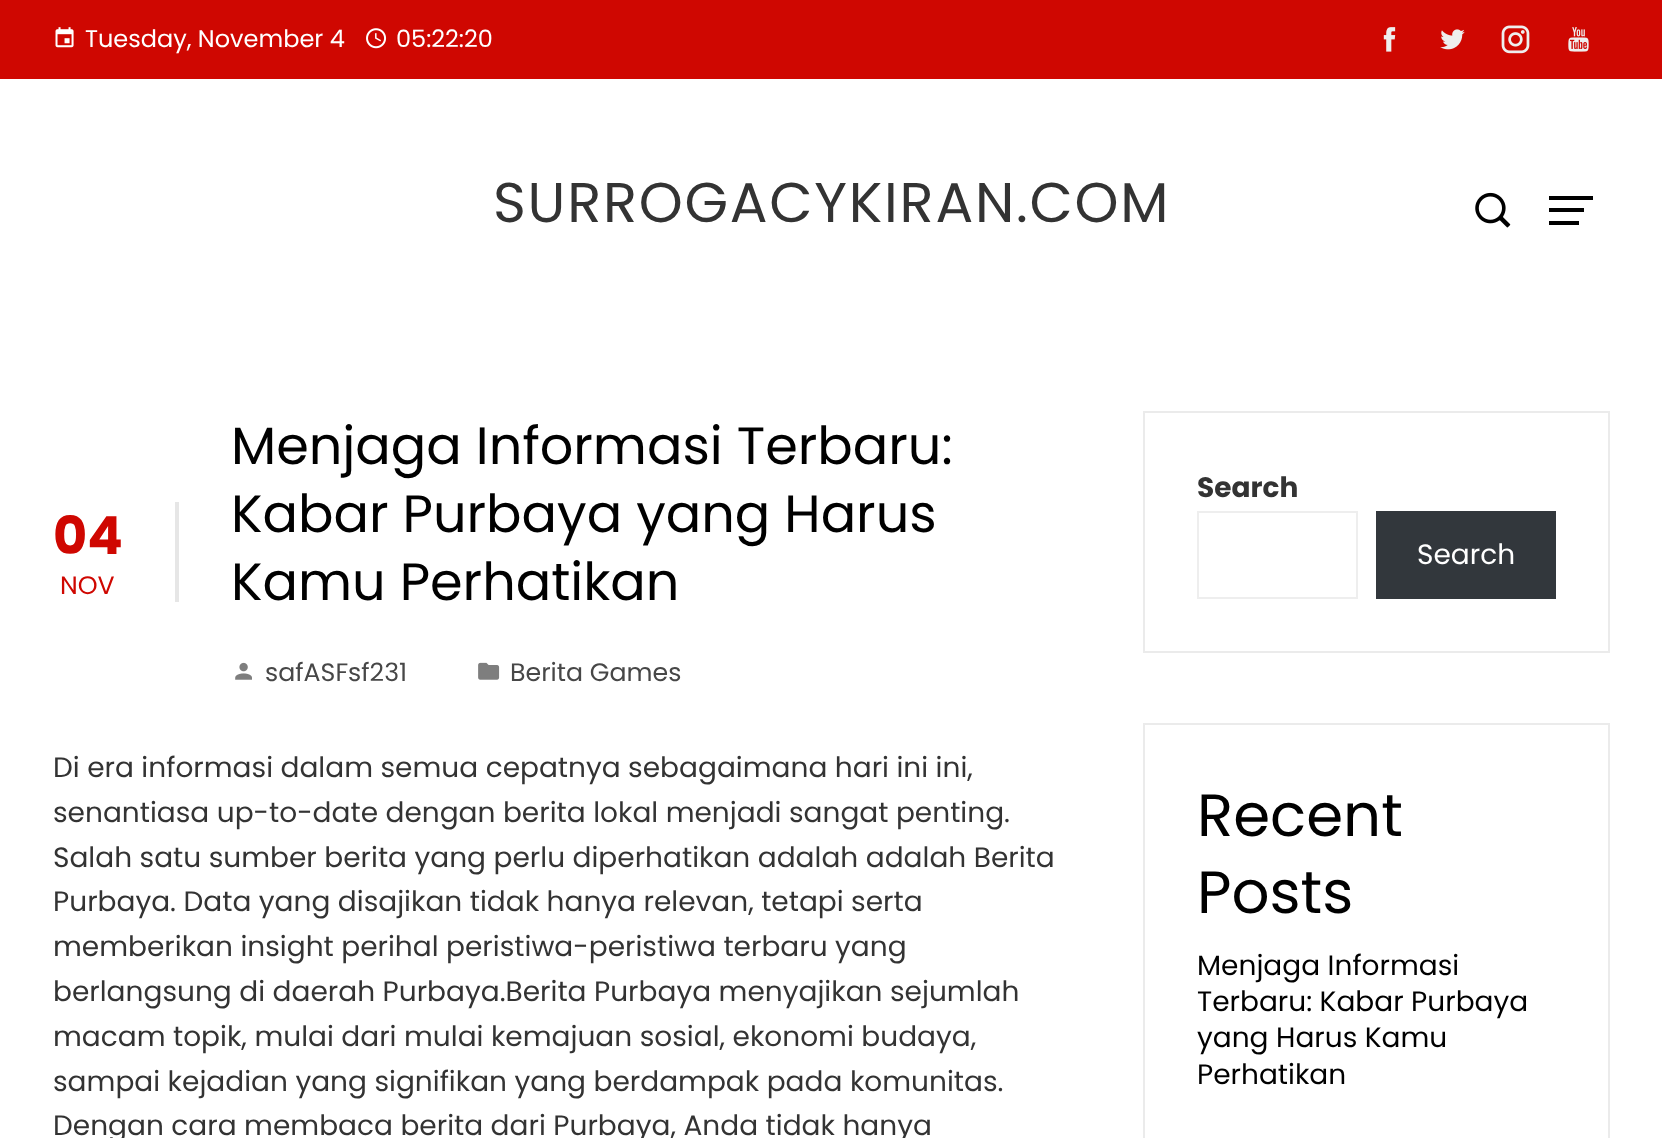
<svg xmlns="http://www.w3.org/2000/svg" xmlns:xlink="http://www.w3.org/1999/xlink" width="1662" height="1138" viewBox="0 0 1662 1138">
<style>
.cls-1{font:24px Poppins;fill:#ffffff}
.cls-2{font:56px Poppins;letter-spacing:1.75px;fill:#333333}
.cls-3{font:bold 52.5px Poppins;fill:#cf0701}
.cls-4{font:25.25px Poppins;fill:#cf0701}
.cls-5{font:52.5px Poppins;fill:#000000}
.cls-6{font:25.25px Poppins;fill:#474747}
.cls-7{font:28px Poppins;fill:#333333}
.cls-8{font:bold 28px Poppins;fill:#333333}
.cls-9{font:28px Poppins;fill:#ffffff}
.cls-10{font:59.5px Poppins;fill:#000000}
.cls-11{font:28px Poppins;fill:#000000}
</style>
<rect width="100%" height="100%" fill="#ffffff"/>
<rect fill="#cf0701" x="0" y="0" width="1662" height="79"/>
<image xlink:href="image0.png" x="55" y="27" width="19" height="21"/>
<image xlink:href="image1.png" x="366" y="28" width="21" height="21"/>
<image xlink:href="image2.png" x="1383" y="27" width="13" height="25"/>
<image xlink:href="image3.png" x="1440" y="29" width="25" height="21"/>
<image xlink:href="image4.png" x="1501" y="25" width="29" height="29"/>
<image xlink:href="image5.png" x="1568" y="27" width="21" height="25"/>
<image xlink:href="image6.png" x="1475" y="192" width="36" height="36"/>
<rect fill="#000000" x="1549" y="196" width="44" height="4"/>
<rect fill="#000000" x="1549" y="208" width="35" height="4"/>
<rect fill="#000000" x="1549" y="221" width="30" height="4"/>
<rect fill="#e6e6e6" x="175" y="502" width="4" height="100"/>
<image xlink:href="image7.png" x="235" y="662" width="17" height="18"/>
<image xlink:href="image8.png" x="478" y="662" width="22" height="18"/>
<rect fill="none" stroke="#ebebeb" stroke-width="2" x="1144" y="412" width="465" height="240"/>
<rect fill="none" stroke="#eeeeee" stroke-width="2" x="1198" y="512" width="159" height="86"/>
<rect fill="#32373c" x="1376" y="511" width="180" height="88"/>
<rect fill="none" stroke="#ebebeb" stroke-width="2" x="1144" y="724" width="465" height="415"/>
<text class="cls-1" x="85" y="47">Tuesday, November 4</text>
<text class="cls-1" x="396" y="47">05:22:20</text>
<text class="cls-2" x="493" y="222">SURROGACYKIRAN.COM</text>
<text class="cls-3" x="53" y="554">04</text>
<text class="cls-4" x="60" y="594">NOV</text>
<text class="cls-5"><tspan x="231" y="464">Menjaga Informasi Terbaru:</tspan><tspan x="231" y="532">Kabar Purbaya yang Harus</tspan><tspan x="231" y="600">Kamu Perhatikan</tspan></text>
<text class="cls-6" x="265" y="681">safASFsf231</text>
<text class="cls-6" x="510" y="681">Berita Games</text>
<text class="cls-7"><tspan x="53" y="777">Di era informasi dalam semua cepatnya sebagaimana hari ini ini,</tspan><tspan x="53" y="822">senantiasa up-to-date dengan berita lokal menjadi sangat penting.</tspan><tspan x="53" y="867">Salah satu sumber berita yang perlu diperhatikan adalah adalah Berita</tspan><tspan x="53" y="911">Purbaya. Data yang disajikan tidak hanya relevan, tetapi serta</tspan><tspan x="53" y="956">memberikan insight perihal peristiwa-peristiwa terbaru yang</tspan><tspan x="53" y="1001">berlangsung di daerah Purbaya.Berita Purbaya menyajikan sejumlah</tspan><tspan x="53" y="1046">macam topik, mulai dari mulai kemajuan sosial, ekonomi budaya,</tspan><tspan x="53" y="1091">sampai kejadian yang signifikan yang berdampak pada komunitas.</tspan><tspan x="53" y="1135">Dengan cara membaca berita dari Purbaya, Anda tidak hanya</tspan></text>
<text class="cls-8" x="1197" y="497">Search</text>
<text class="cls-9" x="1417" y="564">Search</text>
<text class="cls-10"><tspan x="1197" y="836">Recent</tspan><tspan x="1197" y="913">Posts</tspan></text>
<text class="cls-11"><tspan x="1197" y="975">Menjaga Informasi</tspan><tspan x="1197" y="1011">Terbaru: Kabar Purbaya</tspan><tspan x="1197" y="1047">yang Harus Kamu</tspan><tspan x="1197" y="1084">Perhatikan</tspan></text>
</svg>
